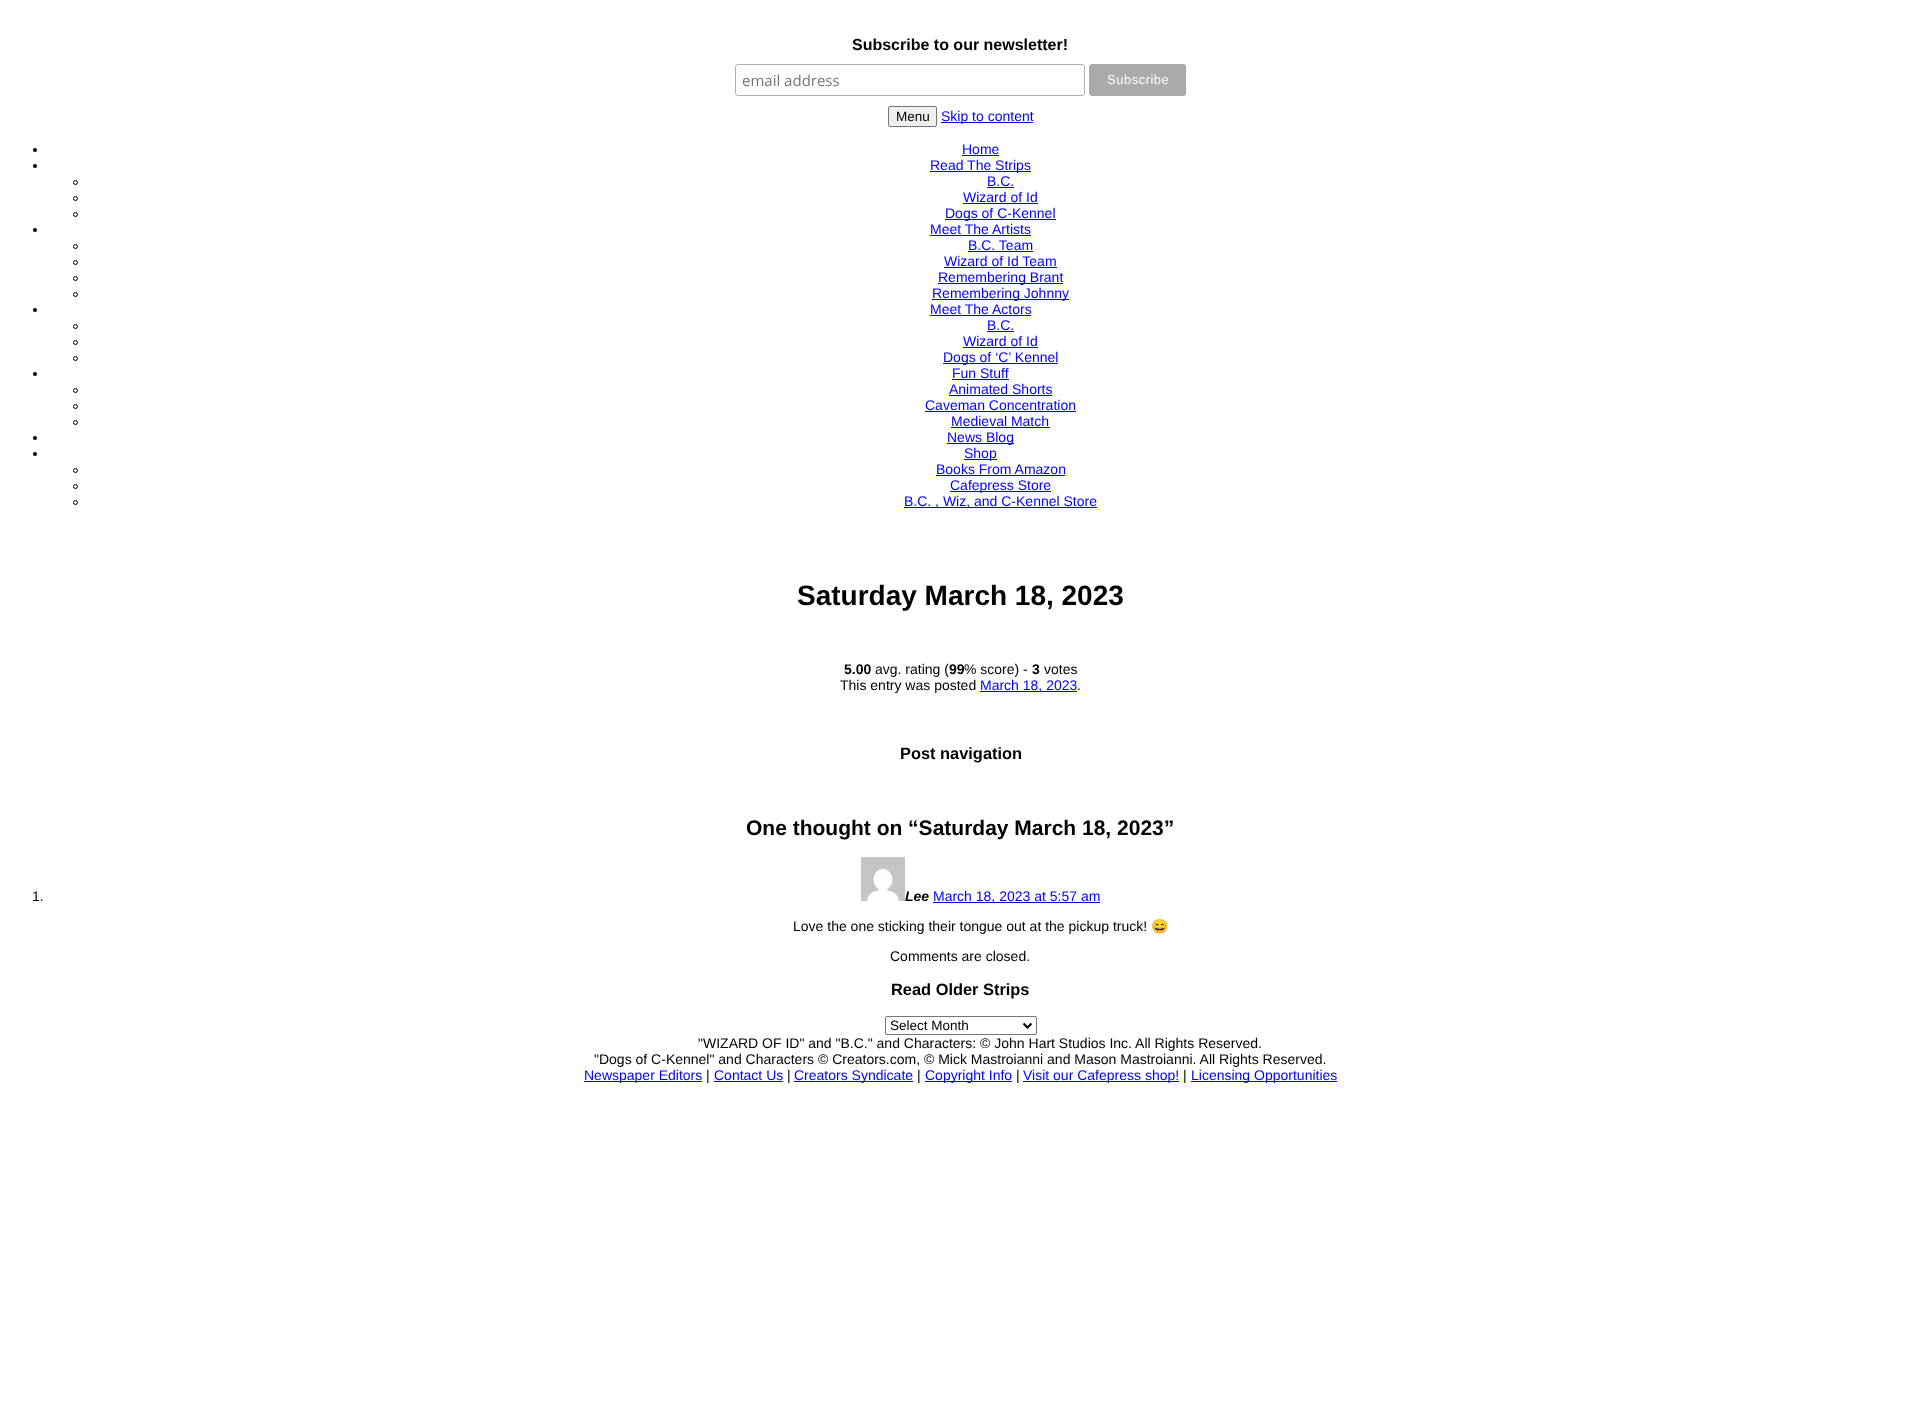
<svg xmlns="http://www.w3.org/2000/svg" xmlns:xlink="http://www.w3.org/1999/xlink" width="1921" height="1404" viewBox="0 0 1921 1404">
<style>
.cls-1{font:bold 16px Liberation Sans;fill:#000000}
.cls-2{font:15px Open Sans;fill:#757575}
.cls-3{font:13px Liberation Sans;letter-spacing:0.5px;fill:#ffffff}
.cls-4{font:13.5px Liberation Sans;fill:#000000}
.cls-5{font:14px Liberation Sans;fill:#0000ee}
.cls-6{font:bold 28px Liberation Sans;fill:#000000}
.cls-7{font:bold 14px Liberation Sans;fill:#000000}
.cls-8{font:14px Liberation Sans;fill:#000000}
.cls-9{font:bold 16.4px Liberation Sans;fill:#000000}
.cls-10{font:bold 21px Liberation Sans;fill:#000000}
.cls-11{font:italic bold 14px Liberation Sans;fill:#000000}
.cls-12{font:14px Noto Color Emoji;fill:#000000}
</style>
<rect width="100%" height="100%" fill="#ffffff"/>
<rect fill="none" stroke="#abb0b2" x="735.5" y="64.5" width="349" height="31" rx="2.5"/>
<rect fill="#aaaaaa" x="1089" y="64" width="97" height="32" rx="3"/>
<rect fill="#efefef" stroke="#767676" x="888.5" y="106.5" width="48" height="20" rx="1.5"/>
<rect fill="#0000ee" x="941" y="122" width="92" height="1"/>
<circle fill="#000000" cx="35" cy="150" r="2"/>
<rect fill="#0000ee" x="962" y="155" width="37" height="1"/>
<circle fill="#000000" cx="35" cy="166" r="2"/>
<rect fill="#0000ee" x="930" y="171" width="101" height="1"/>
<circle fill="none" stroke="#000000" cx="75.5" cy="182.5" r="2"/>
<rect fill="#0000ee" x="987" y="187" width="27" height="1"/>
<circle fill="none" stroke="#000000" cx="75.5" cy="198.5" r="2"/>
<rect fill="#0000ee" x="963" y="203" width="75" height="1"/>
<circle fill="none" stroke="#000000" cx="75.5" cy="214.5" r="2"/>
<rect fill="#0000ee" x="945" y="219" width="111" height="1"/>
<circle fill="#000000" cx="35" cy="230" r="2"/>
<rect fill="#0000ee" x="930" y="235" width="101" height="1"/>
<circle fill="none" stroke="#000000" cx="75.5" cy="246.5" r="2"/>
<rect fill="#0000ee" x="968" y="251" width="65" height="1"/>
<circle fill="none" stroke="#000000" cx="75.5" cy="262.5" r="2"/>
<rect fill="#0000ee" x="944" y="267" width="113" height="1"/>
<circle fill="none" stroke="#000000" cx="75.5" cy="278.5" r="2"/>
<rect fill="#0000ee" x="938" y="283" width="125" height="1"/>
<circle fill="none" stroke="#000000" cx="75.5" cy="294.5" r="2"/>
<rect fill="#0000ee" x="932" y="299" width="137" height="1"/>
<circle fill="#000000" cx="35" cy="310" r="2"/>
<rect fill="#0000ee" x="930" y="315" width="101" height="1"/>
<circle fill="none" stroke="#000000" cx="75.5" cy="326.5" r="2"/>
<rect fill="#0000ee" x="987" y="331" width="27" height="1"/>
<circle fill="none" stroke="#000000" cx="75.5" cy="342.5" r="2"/>
<rect fill="#0000ee" x="963" y="347" width="75" height="1"/>
<circle fill="none" stroke="#000000" cx="75.5" cy="358.5" r="2"/>
<rect fill="#0000ee" x="943" y="363" width="115" height="1"/>
<circle fill="#000000" cx="35" cy="374" r="2"/>
<rect fill="#0000ee" x="952" y="379" width="57" height="1"/>
<circle fill="none" stroke="#000000" cx="75.5" cy="390.5" r="2"/>
<rect fill="#0000ee" x="949" y="395" width="103" height="1"/>
<circle fill="none" stroke="#000000" cx="75.5" cy="406.5" r="2"/>
<rect fill="#0000ee" x="925" y="411" width="151" height="1"/>
<circle fill="none" stroke="#000000" cx="75.5" cy="422.5" r="2"/>
<rect fill="#0000ee" x="951" y="427" width="99" height="1"/>
<circle fill="#000000" cx="35" cy="438" r="2"/>
<rect fill="#0000ee" x="947" y="443" width="67" height="1"/>
<circle fill="#000000" cx="35" cy="454" r="2"/>
<rect fill="#0000ee" x="964" y="459" width="33" height="1"/>
<circle fill="none" stroke="#000000" cx="75.5" cy="470.5" r="2"/>
<rect fill="#0000ee" x="936" y="475" width="129" height="1"/>
<circle fill="none" stroke="#000000" cx="75.5" cy="486.5" r="2"/>
<rect fill="#0000ee" x="950" y="491" width="101" height="1"/>
<circle fill="none" stroke="#000000" cx="75.5" cy="502.5" r="2"/>
<rect fill="#0000ee" x="904" y="507" width="193" height="1"/>
<rect fill="#0000ee" x="980" y="691" width="97" height="1"/>
<image xlink:href="image0.png" x="861" y="857" width="44" height="44"/>
<rect fill="#0000ee" x="933" y="902" width="167" height="1"/>
<rect fill="none" stroke="#767676" x="885.5" y="1016.5" width="151" height="18" rx="1.5"/>
<path fill="none" stroke="#000000" stroke-width="2" d="M1023.5 1023.5L1027.5 1027.5L1031.5 1023.5"/>
<rect fill="#0000ee" x="584" y="1081" width="118" height="1"/>
<rect fill="#0000ee" x="714" y="1081" width="69" height="1"/>
<rect fill="#0000ee" x="794" y="1081" width="119" height="1"/>
<rect fill="#0000ee" x="925" y="1081" width="87" height="1"/>
<rect fill="#0000ee" x="1023" y="1081" width="156" height="1"/>
<rect fill="#0000ee" x="1191" y="1081" width="146" height="1"/>
<text class="cls-1" x="852" y="50">Subscribe to our newsletter!</text>
<text class="cls-2" x="742" y="86">email address</text>
<text class="cls-3" x="1107" y="84">Subscribe</text>
<text class="cls-4" x="896" y="121">Menu</text>
<text class="cls-5" x="941" y="121">Skip to content</text>
<text class="cls-5" x="962" y="154">Home</text>
<text class="cls-5" x="930" y="170">Read The Strips</text>
<text class="cls-5" x="987" y="186">B.C.</text>
<text class="cls-5" x="963" y="202">Wizard of Id</text>
<text class="cls-5" x="945" y="218">Dogs of C-Kennel</text>
<text class="cls-5" x="930" y="234">Meet The Artists</text>
<text class="cls-5" x="968" y="250">B.C. Team</text>
<text class="cls-5" x="944" y="266">Wizard of Id Team</text>
<text class="cls-5" x="938" y="282">Remembering Brant</text>
<text class="cls-5" x="932" y="298">Remembering Johnny</text>
<text class="cls-5" x="930" y="314">Meet The Actors</text>
<text class="cls-5" x="987" y="330">B.C.</text>
<text class="cls-5" x="963" y="346">Wizard of Id</text>
<text class="cls-5" x="943" y="362">Dogs of ‘C’ Kennel</text>
<text class="cls-5" x="952" y="378">Fun Stuff</text>
<text class="cls-5" x="949" y="394">Animated Shorts</text>
<text class="cls-5" x="925" y="410">Caveman Concentration</text>
<text class="cls-5" x="951" y="426">Medieval Match</text>
<text class="cls-5" x="947" y="442">News Blog</text>
<text class="cls-5" x="964" y="458">Shop</text>
<text class="cls-5" x="936" y="474">Books From Amazon</text>
<text class="cls-5" x="950" y="490">Cafepress Store</text>
<text class="cls-5" x="904" y="506">B.C. , Wiz, and C-Kennel Store</text>
<text class="cls-6" x="797" y="605">Saturday March 18, 2023</text>
<text class="cls-7" x="844" y="674">5.00</text>
<text class="cls-8" x="875" y="674">avg. rating (</text>
<text class="cls-7" x="949" y="674">99</text>
<text class="cls-8" x="964" y="674">% score) -</text>
<text class="cls-7" x="1032" y="674">3</text>
<text class="cls-8" x="1044" y="674">votes</text>
<text class="cls-8" x="840" y="690">This entry was posted</text>
<text class="cls-5" x="980" y="690">March 18, 2023</text>
<text class="cls-8" x="1077" y="690">.</text>
<text class="cls-9" x="900" y="759">Post navigation</text>
<text class="cls-10" x="746" y="835">One thought on “Saturday March 18, 2023”</text>
<text class="cls-8" x="32" y="901">1.</text>
<text class="cls-11" x="905" y="901">Lee</text>
<text class="cls-5" x="933" y="901">March 18, 2023 at 5:57 am</text>
<text class="cls-8" x="793" y="931">Love the one sticking their tongue out at the pickup truck!</text>
<text class="cls-12" x="1151" y="931">😄</text>
<text class="cls-8" x="890" y="961">Comments are closed.</text>
<text class="cls-9" x="891" y="995">Read Older Strips</text>
<text class="cls-4" x="890" y="1030">Select Month</text>
<text class="cls-8" x="698" y="1048">"WIZARD OF ID" and "B.C." and Characters: © John Hart Studios Inc. All Rights Reserved.</text>
<text class="cls-8" x="594" y="1064">"Dogs of C-Kennel" and Characters © Creators.com, © Mick Mastroianni and Mason Mastroianni. All Rights Reserved.</text>
<text class="cls-5" x="584" y="1080">Newspaper Editors</text>
<text class="cls-8" x="706" y="1080">|</text>
<text class="cls-5" x="714" y="1080">Contact Us</text>
<text class="cls-8" x="787" y="1080">|</text>
<text class="cls-5" x="794" y="1080">Creators Syndicate</text>
<text class="cls-8" x="917" y="1080">|</text>
<text class="cls-5" x="925" y="1080">Copyright Info</text>
<text class="cls-8" x="1016" y="1080">|</text>
<text class="cls-5" x="1023" y="1080">Visit our Cafepress shop!</text>
<text class="cls-8" x="1183" y="1080">|</text>
<text class="cls-5" x="1191" y="1080">Licensing Opportunities</text>
</svg>
